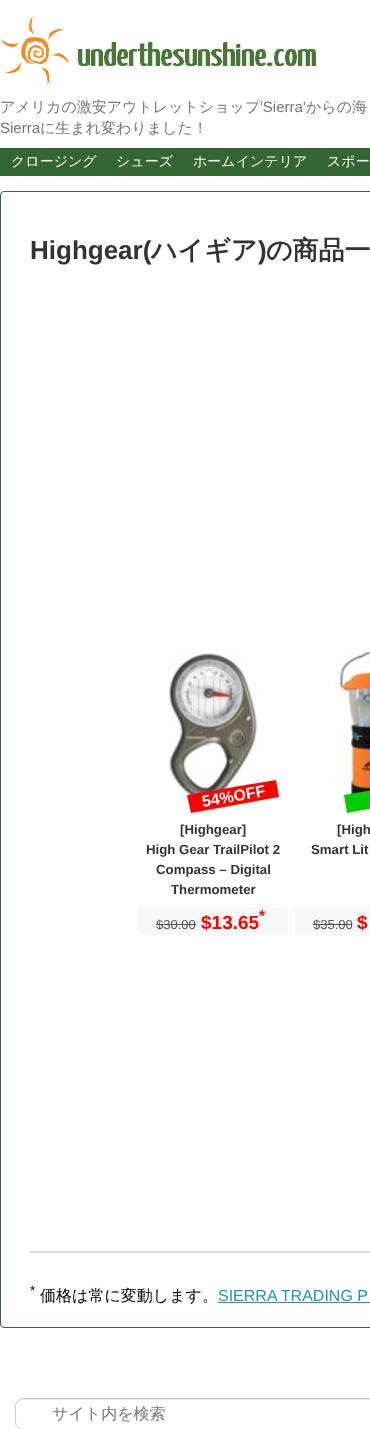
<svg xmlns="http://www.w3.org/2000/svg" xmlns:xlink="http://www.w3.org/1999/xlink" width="370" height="1429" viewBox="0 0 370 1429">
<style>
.cls-1{font:500 15px WenQuanYi Zen Hei;fill:#777777}
.cls-2{font:15px Liberation Sans;fill:#777777}
.cls-3{font:500 14px WenQuanYi Zen Hei;fill:#ffffff}
.cls-4{font:bold 26px Liberation Sans;fill:#333333}
.cls-5{font:bold 26px WenQuanYi Zen Hei;fill:#333333}
.cls-6{font:bold 16px Liberation Sans;fill:#ffffff}
.cls-7{font:bold 13.25px Liberation Sans;fill:#333333}
.cls-8{font:bold 16px Liberation Sans;fill:#ff0000}
.cls-9{font:13px Liberation Sans;fill:#555555}
.cls-10{font:bold 19px Liberation Sans;fill:#ff0000}
.cls-11{font:13.25px Liberation Sans;fill:#000000}
.cls-12{font:500 16px WenQuanYi Zen Hei;fill:#000000}
.cls-13{font:16px Liberation Sans;fill:#2098a8}
.cls-14{font:500 16px WenQuanYi Zen Hei;fill:#777777}
</style>
<rect width="100%" height="100%" fill="#ffffff"/>
<image xlink:href="image0.png" x="1" y="16" width="315" height="70"/>
<rect fill="#336633" x="0" y="148" width="370" height="28"/>
<rect fill="none" stroke="#336633" x="0.5" y="191.5" width="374" height="1136" rx="3.5"/>
<image xlink:href="image1.png" x="168" y="652" width="90" height="150"/>
<path fill="#ff0000" d="M187 795L276 780L279 797L191 813Z"/>
<rect fill="#f7f7f7" x="138" y="907" width="150" height="27"/>
<rect fill="#555555" x="156" y="924" width="40" height="1"/>
<image xlink:href="image2.png" x="334" y="652" width="36" height="150"/>
<path fill="#00cc00" d="M344 795L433 780L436 797L347 813Z"/>
<rect fill="#f7f7f7" x="295" y="907" width="75" height="27"/>
<rect fill="#555555" x="313" y="924" width="39" height="1"/>
<rect fill="#dddddd" x="30" y="1251" width="340" height="2"/>
<rect fill="#2098a8" x="218" y="1302" width="152" height="1"/>
<path fill="#ececec" d="M23 1400H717C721 1400 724 1403 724 1407C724 1403 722 1399 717 1399H23C18 1399 16 1403 16 1407C16 1403 19 1400 23 1400Z"/>
<rect fill="none" stroke="#cccccc" x="15.5" y="1398.5" width="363" height="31" rx="7.5"/>
<text class="cls-1" x="0" y="112">アメリカの激安アウトレットショップ</text>
<text class="cls-2" x="260" y="112">'Sierra'</text>
<text class="cls-1" x="306" y="112">からの海</text>
<text class="cls-2" x="0" y="133">Sierra</text>
<text class="cls-1" x="40" y="133">に生まれ変わりました！</text>
<text class="cls-3" x="11" y="166">クロージング</text>
<text class="cls-3" x="116" y="166">シューズ</text>
<text class="cls-3" x="193" y="166">ホームインテリア</text>
<text class="cls-3" x="327" y="166">スポー</text>
<text class="cls-4" x="30" y="259">Highgear(</text>
<text class="cls-5" x="151" y="259">ハイギア</text>
<text class="cls-4" x="258" y="259">)</text>
<text class="cls-5" x="266" y="259">の商品一</text>
<text class="cls-6" x="203" y="807" transform="rotate(-10 203 807)">54%OFF</text>
<text class="cls-7" x="180" y="834">[Highgear]</text>
<text class="cls-7" x="146" y="854">High Gear TrailPilot 2</text>
<text class="cls-7" x="156" y="874">Compass – Digital</text>
<text class="cls-7" x="171" y="894">Thermometer</text>
<text class="cls-8" x="259" y="921">*</text>
<text class="cls-9" x="156" y="929">$30.00</text>
<text class="cls-10" x="201" y="929">$13.65</text>
<text class="cls-7" x="337" y="834">[High</text>
<text class="cls-7" x="311" y="854">Smart Lit</text>
<text class="cls-9" x="313" y="929">$35.00</text>
<text class="cls-10" x="357" y="929">$</text>
<text class="cls-11" x="30" y="1295">*</text>
<text class="cls-12" x="40" y="1301">価格は常に変動します。</text>
<text class="cls-13" x="218" y="1301">SIERRA TRADING P</text>
<text class="cls-14" x="52" y="1419">サイト内を検索</text>
</svg>
